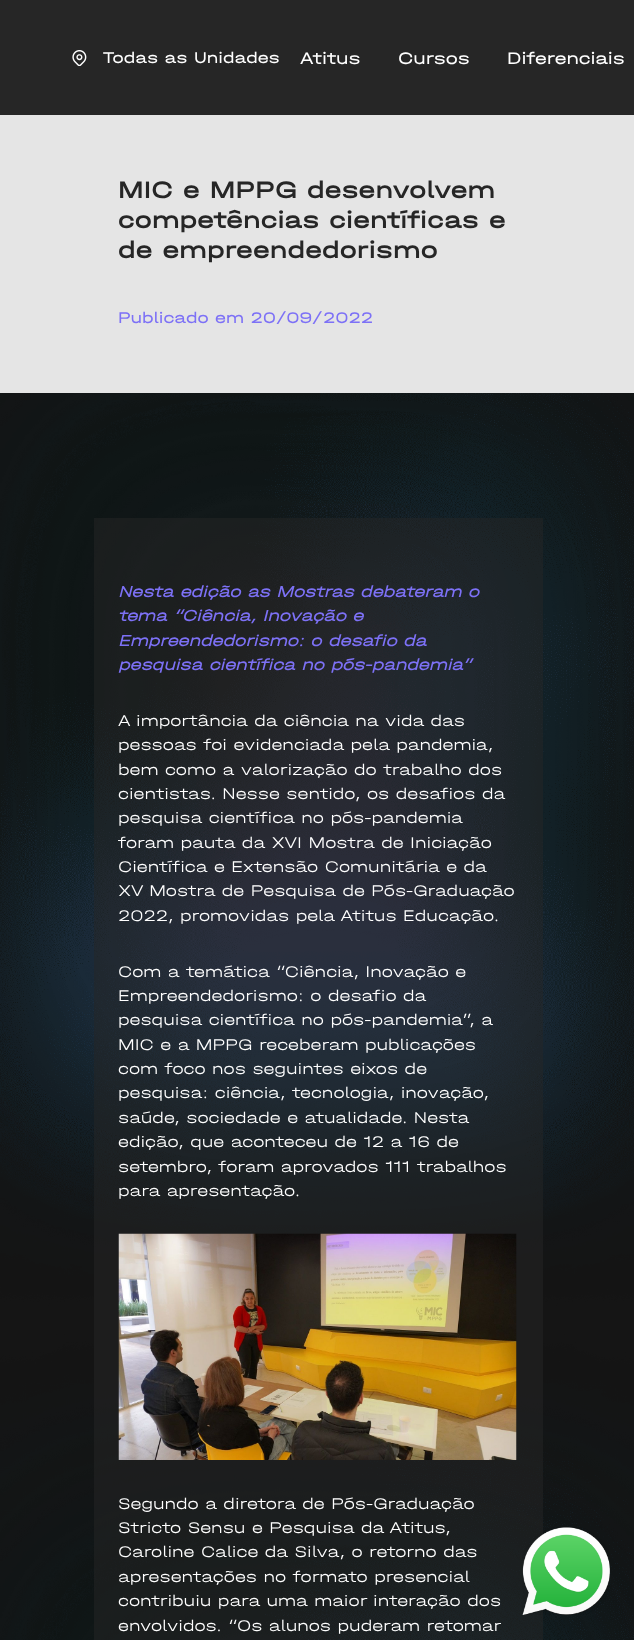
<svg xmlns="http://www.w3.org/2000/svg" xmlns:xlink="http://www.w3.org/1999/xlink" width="634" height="1640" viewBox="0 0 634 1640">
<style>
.cls-1{font:16.25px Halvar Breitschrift;fill:#ffffff}
.cls-2{font:17.5px Halvar Breitschrift;fill:#ffffff}
.cls-3{font:500 25px Halvar Breitschrift;fill:#262626}
.cls-4{font:16.25px Halvar Breitschrift;fill:#7d71f6}
.cls-5{font:italic bold 16.25px Halvar Breitschrift;fill:#7d71f6}
.cls-6{font:300 16.25px Halvar Breitschrift;fill:#ffffff}
</style>
<rect width="100%" height="100%" fill="#151515"/>
<image xlink:href="image0.png" x="0" y="393" width="634" height="1247"/>
<rect fill="#262626" x="0" y="0" width="634" height="115"/>
<image xlink:href="image1.png" x="72" y="50" width="15" height="16"/>
<rect fill="#e5e5e5" x="0" y="115" width="634" height="278"/>
<rect fill="#262626" fill-opacity="0.5" x="94" y="518" width="449" height="1122"/>
<image xlink:href="image2.png" x="118" y="1233" width="399" height="227"/>
<circle fill="#262626" cx="566.5" cy="1571.5" r="43.5"/>
<image xlink:href="image3.png" x="522" y="1527" width="88" height="88"/>
<text class="cls-1" x="103" y="63">Todas as Unidades</text>
<text class="cls-2" x="300" y="64">Atitus</text>
<text class="cls-2" x="398" y="64">Cursos</text>
<text class="cls-2" x="507" y="64">Diferenciais</text>
<text class="cls-3"><tspan x="118" y="198">MIC e MPPG desenvolvem</tspan><tspan x="118" y="228">competências científicas e</tspan><tspan x="118" y="258">de empreendedorismo</tspan></text>
<text class="cls-4" x="118" y="323">Publicado em 20/09/2022</text>
<text class="cls-5"><tspan x="118" y="597">Nesta edição as Mostras debateram o</tspan><tspan x="118" y="621">tema “Ciência, Inovação e</tspan><tspan x="118" y="646">Empreendedorismo: o desafio da</tspan><tspan x="118" y="670">pesquisa científica no pós-pandemia”</tspan></text>
<text class="cls-6"><tspan x="118" y="726">A importância da ciência na vida das</tspan><tspan x="118" y="750">pessoas foi evidenciada pela pandemia,</tspan><tspan x="118" y="775">bem como a valorização do trabalho dos</tspan><tspan x="118" y="799">cientistas. Nesse sentido, os desafios da</tspan><tspan x="118" y="823">pesquisa científica no pós-pandemia</tspan><tspan x="118" y="848">foram pauta da XVI Mostra de Iniciação</tspan><tspan x="118" y="872">Científica e Extensão Comunitária e da</tspan><tspan x="118" y="896">XV Mostra de Pesquisa de Pós-Graduação</tspan><tspan x="118" y="921">2022, promovidas pela Atitus Educação.</tspan></text>
<text class="cls-6"><tspan x="118" y="977">Com a temática “Ciência, Inovação e</tspan><tspan x="118" y="1001">Empreendedorismo: o desafio da</tspan><tspan x="118" y="1025">pesquisa científica no pós-pandemia”, a</tspan><tspan x="118" y="1050">MIC e a MPPG receberam publicações</tspan><tspan x="118" y="1074">com foco nos seguintes eixos de</tspan><tspan x="118" y="1098">pesquisa: ciência, tecnologia, inovação,</tspan><tspan x="118" y="1123">saúde, sociedade e atualidade. Nesta</tspan><tspan x="118" y="1147">edição, que aconteceu de 12 a 16 de</tspan><tspan x="118" y="1172">setembro, foram aprovados 111 trabalhos</tspan><tspan x="118" y="1196">para apresentação.</tspan></text>
<text class="cls-6"><tspan x="118" y="1509">Segundo a diretora de Pós-Graduação</tspan><tspan x="118" y="1533">Stricto Sensu e Pesquisa da Atitus,</tspan><tspan x="118" y="1557">Caroline Calice da Silva, o retorno das</tspan><tspan x="118" y="1582">apresentações no formato presencial</tspan><tspan x="118" y="1606">contribuiu para uma maior interação dos</tspan><tspan x="118" y="1631">envolvidos. “Os alunos puderam retomar</tspan></text>
</svg>
